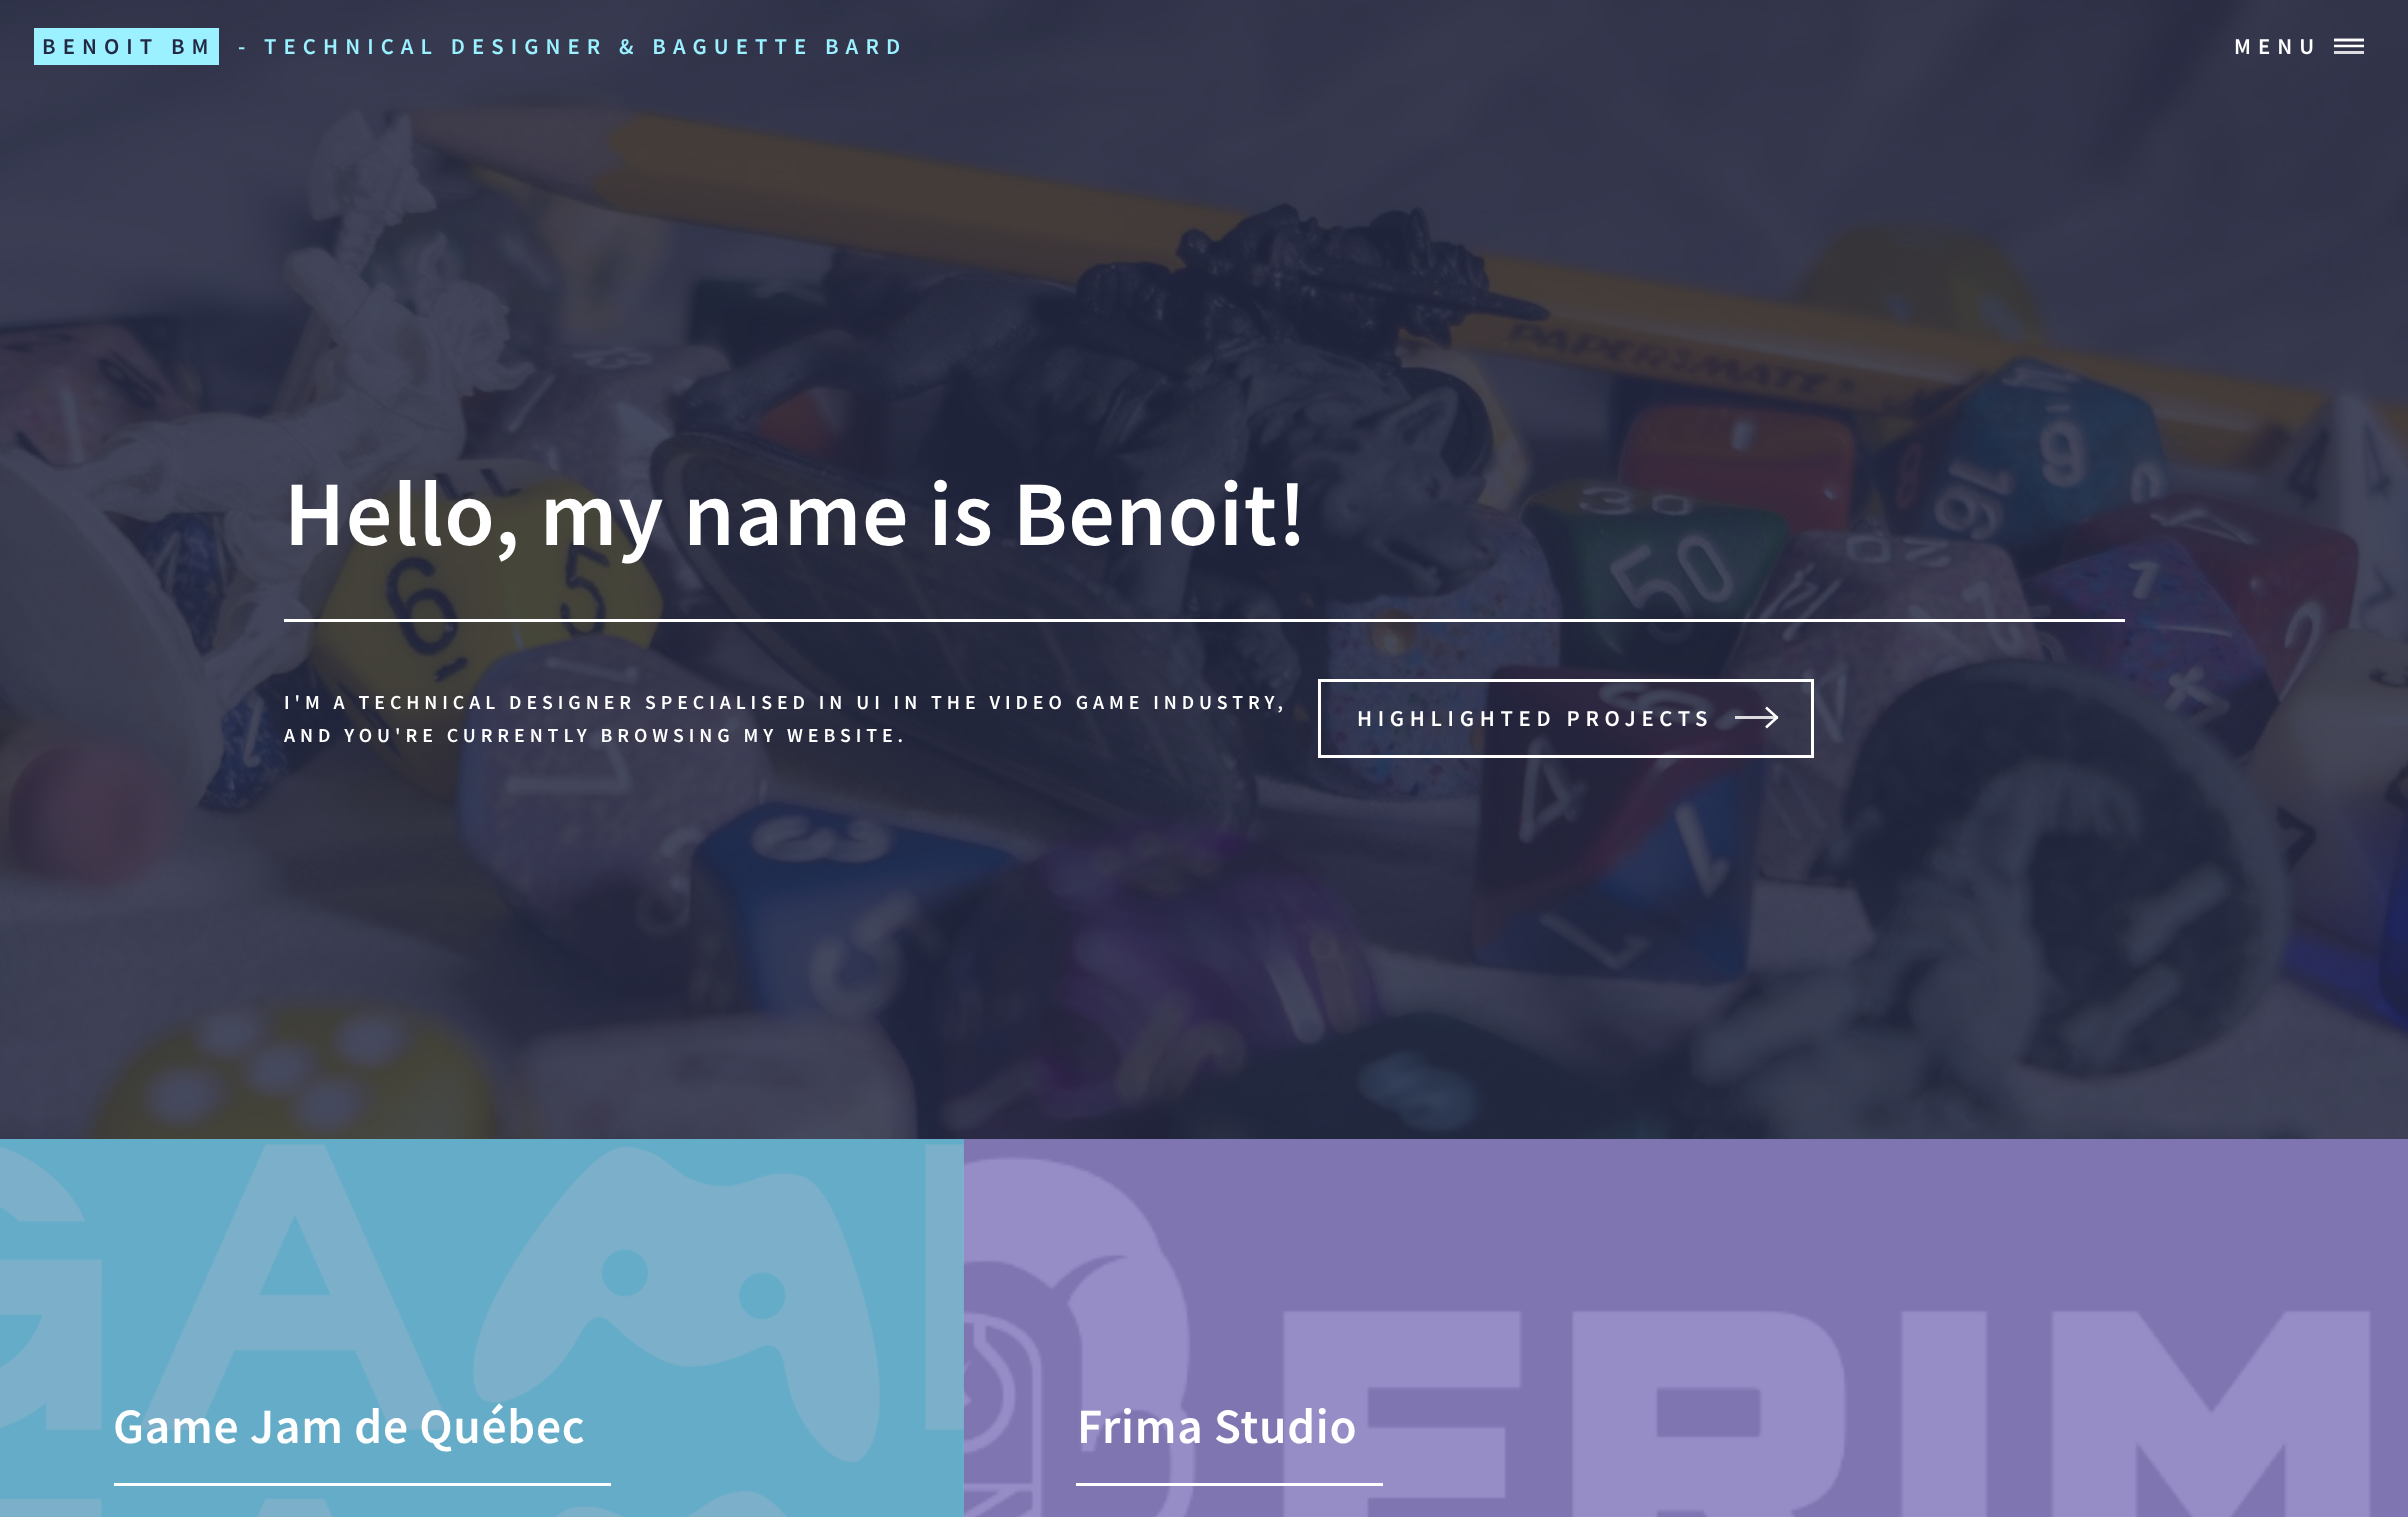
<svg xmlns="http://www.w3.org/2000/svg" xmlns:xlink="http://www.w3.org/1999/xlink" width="2408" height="1517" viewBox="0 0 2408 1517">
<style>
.cls-1{font:600 22.7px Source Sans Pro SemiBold;letter-spacing:7.1px;fill:#242943}
.cls-2{font:600 22.7px Source Sans Pro SemiBold;letter-spacing:7.1px;fill:#9bf1ff}
.cls-3{font:600 22.7px Source Sans Pro SemiBold;letter-spacing:7.1px;fill:#ffffff}
.cls-4{font:600 92px Source Sans Pro SemiBold;letter-spacing:0.7px;fill:#ffffff}
.cls-5{font:600 19.83px Source Sans Pro SemiBold;letter-spacing:4.95px;fill:#ffffff}
.cls-6{font:600 22.7px Source Sans Pro SemiBold;letter-spacing:5.7px;fill:#ffffff}
.cls-7{font:600 49.5px Source Sans Pro SemiBold;letter-spacing:0.7px;fill:#ffffff}
</style>
<rect width="100%" height="100%" fill="#2a2f4a"/>
<image xlink:href="image0.png" x="0" y="0" width="2408" height="1139"/>
<rect fill="#9bf1ff" x="34" y="28" width="185" height="37"/>
<path fill="none" stroke="#ffffff" stroke-width="2.5" d="M2334 40H2364"/>
<rect fill="#dddde1" x="2334" y="51" width="30" height="3"/>
<path fill="none" stroke="#ffffff" stroke-width="2.5" d="M2334 46H2364M2334 40H2364M2334 46H2364"/>
<rect fill="#ffffff" x="284" y="619" width="1841" height="3"/>
<rect fill="none" stroke="#ffffff" stroke-width="3" x="1319.5" y="680.5" width="493" height="76"/>
<rect fill="#ffffff" fill-opacity="0.83" x="1735" y="716" width="43" height="3"/>
<path fill="none" stroke="#ffffff" stroke-width="2.5" d="M1766 707.5L1777.5 718M1766 727.5L1777.5 717"/>
<rect fill="#7e75b1" x="964" y="1139" width="1444" height="378"/>
<image xlink:href="image1.png" x="0" y="1144" width="964" height="373"/>
<image xlink:href="image2.png" x="963" y="1155" width="1411" height="362"/>
<rect fill="#242943" fill-opacity="0.25" x="0" y="1144" width="964" height="373"/>
<rect fill="#6fc3df" fill-opacity="0.85" x="0" y="1139" width="964" height="378"/>
<rect fill="#ffffff" x="114" y="1483" width="497" height="3"/>
<rect fill="#ffffff" x="1076" y="1483" width="307" height="3"/>
<text class="cls-1" x="42" y="54">BENOIT BM</text>
<text class="cls-2" x="238" y="54">- TECHNICAL DESIGNER &amp; BAGUETTE BARD</text>
<text class="cls-3" x="2234" y="54">MENU</text>
<text class="cls-4" x="284" y="545">Hello, my name is Benoit!</text>
<text class="cls-5"><tspan x="284" y="709">I'M A TECHNICAL DESIGNER SPECIALISED IN UI IN THE VIDEO GAME INDUSTRY,</tspan><tspan x="284" y="742">AND YOU'RE CURRENTLY BROWSING MY WEBSITE.</tspan></text>
<text class="cls-6" x="1357" y="726">HIGHLIGHTED PROJECTS</text>
<text class="cls-7" x="113" y="1443">Game Jam de Québec</text>
<text class="cls-7" x="1077" y="1443">Frima Studio</text>
</svg>
